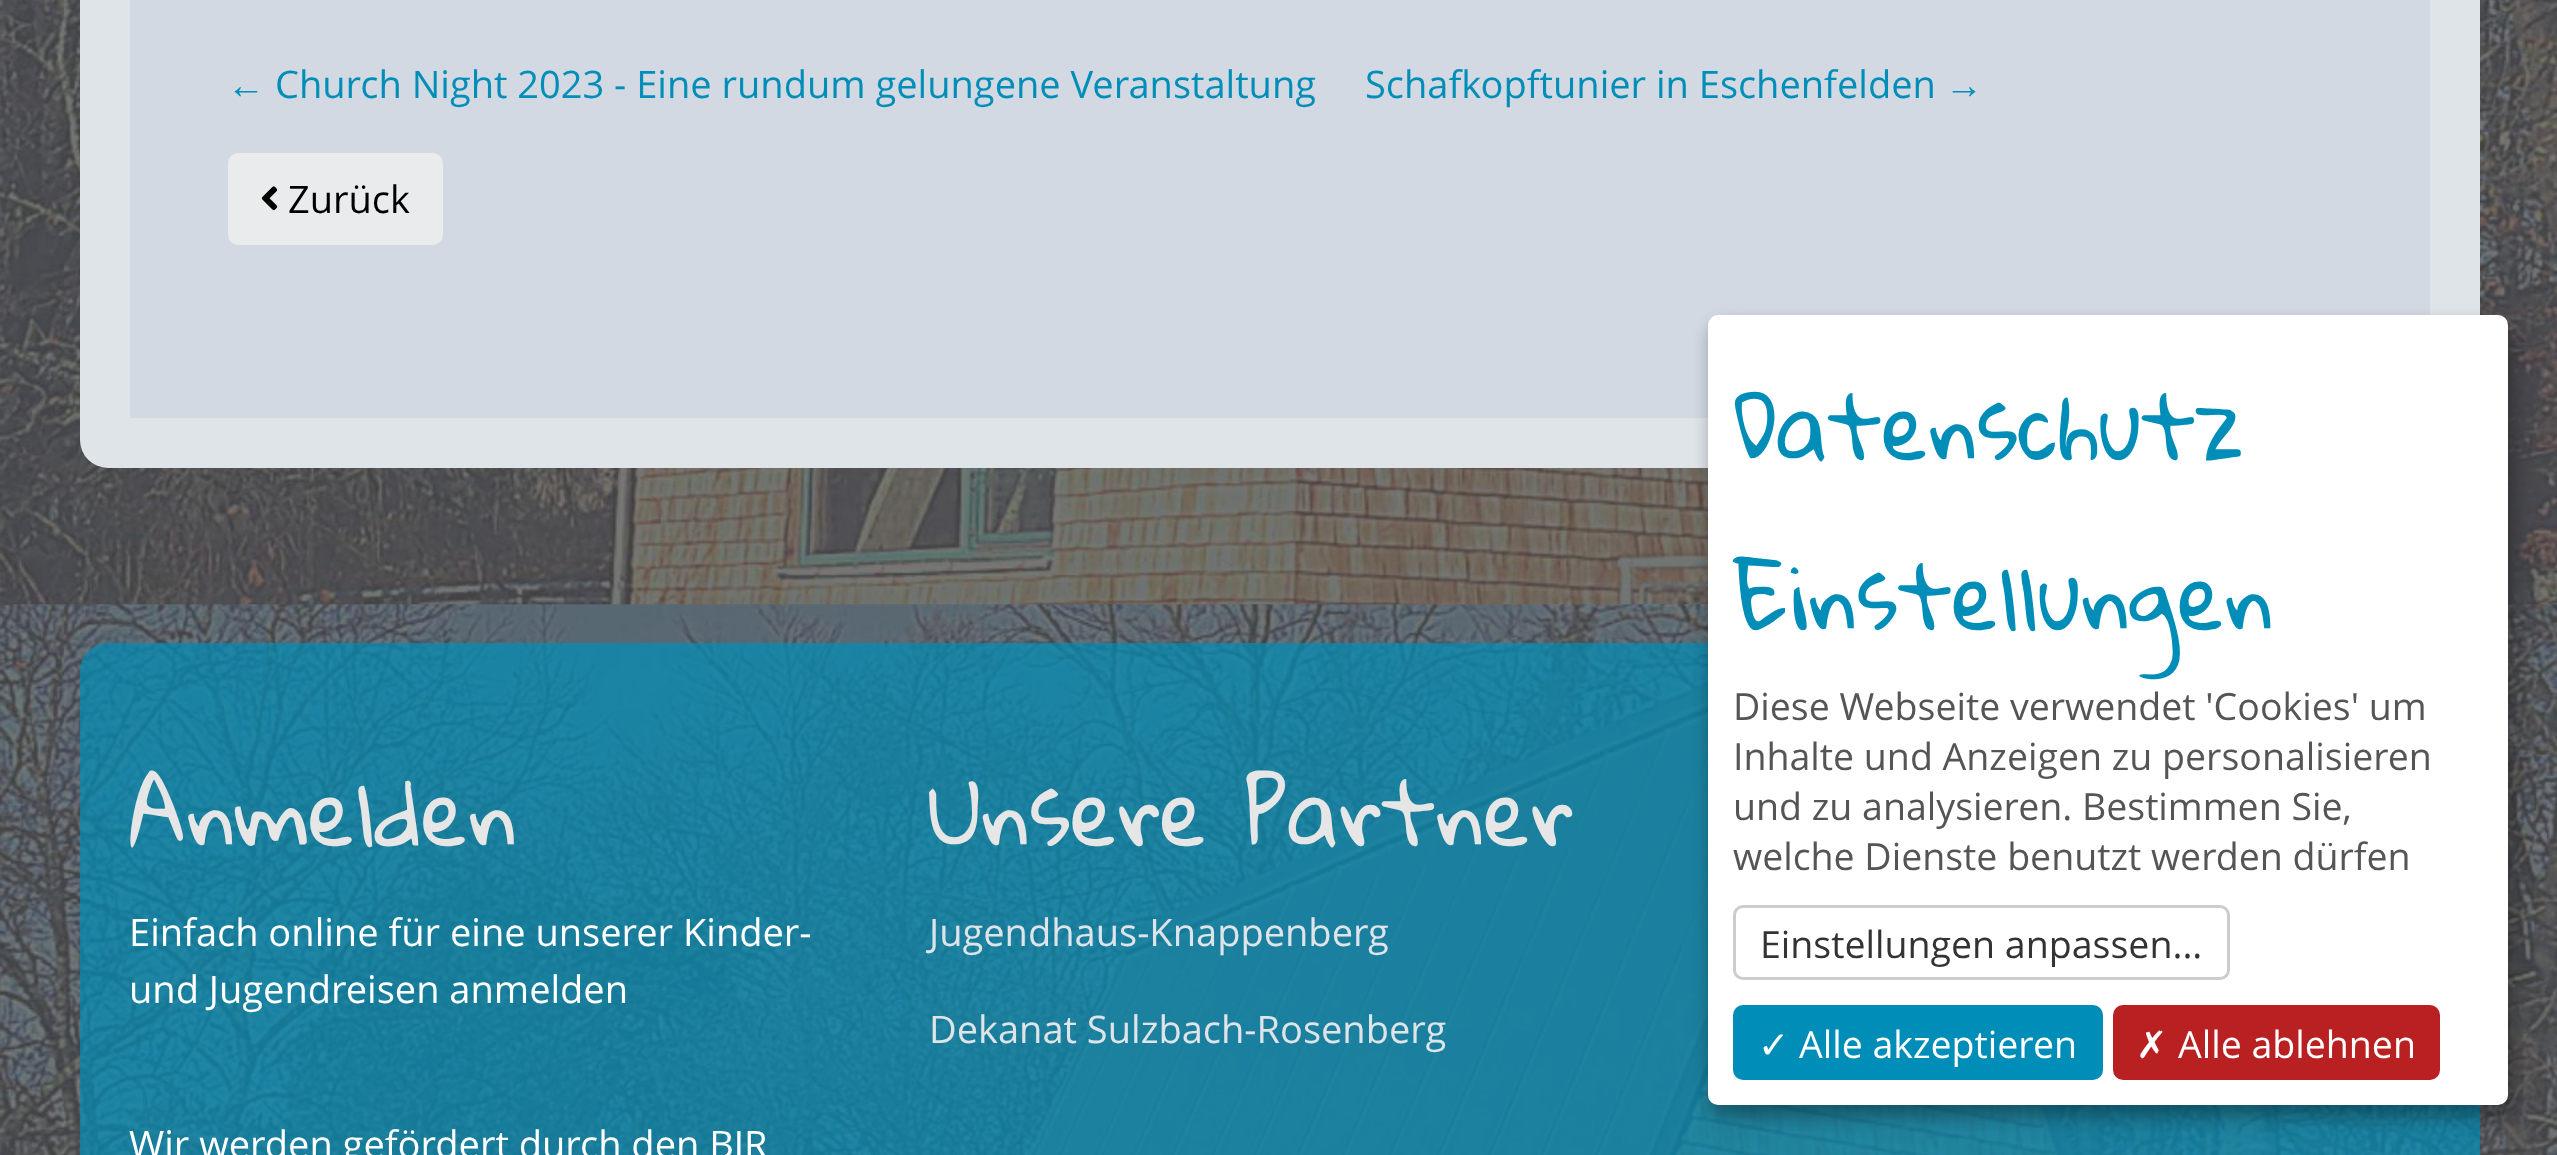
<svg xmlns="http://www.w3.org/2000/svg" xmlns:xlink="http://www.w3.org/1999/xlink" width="2557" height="1155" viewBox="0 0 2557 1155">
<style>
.cls-1{font:38px Liberation Sans;fill:#008eb8}
.cls-2{font:38px Open Sans;fill:#008eb8}
.cls-3{font:38px Open Sans;fill:#000000}
.cls-4{font:85.75px Gloria Hallelujah;fill:#e6e6e6}
.cls-5{font:38px Open Sans;fill:#ffffff}
.cls-6{font:38px Open Sans;fill:#dfe4e9}
.cls-7{font:85.75px Gloria Hallelujah;fill:#008eb8}
.cls-8{font:37.5px Open Sans;fill:#555555}
.cls-9{font:37.5px Open Sans;fill:#333333}
.cls-10{font:37.5px DejaVu Sans;fill:#ffffff}
.cls-11{font:37.5px Open Sans;fill:#ffffff}
</style>
<rect width="100%" height="100%" fill="#ffffff"/>
<image xlink:href="image0.png" x="0" y="0" width="2557" height="1155"/>
<rect fill="#dfe4e9" x="80" y="-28" width="2400" height="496" rx="28"/>
<rect fill="#d2d9e2" x="130" y="0" width="2300" height="418"/>
<rect fill="#eaebec" stroke="#eaebec" stroke-width="3" x="229.5" y="154.5" width="212" height="89" rx="8.5"/>
<image xlink:href="image1.png" x="261" y="186" width="17" height="25"/>
<rect fill="#008eb8" fill-opacity="0.7" x="80" y="643" width="2400" height="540" rx="28"/>
<rect fill="#000000" fill-opacity="0.19" filter="blur(12.5px)" x="1720" y="328" width="800" height="790" rx="10"/>
<rect fill="#000000" fill-opacity="0.2" filter="blur(7.5px)" x="1708" y="325" width="800" height="790" rx="10"/>
<rect fill="#ffffff" x="1708" y="315" width="800" height="790" rx="10"/>
<rect fill="none" stroke="#cccccc" stroke-width="3" x="1734.5" y="906.5" width="494" height="72" rx="8.5"/>
<rect fill="#008eb8" x="1733" y="1005" width="370" height="75" rx="10"/>
<rect fill="#b92021" x="2113" y="1005" width="327" height="75" rx="10"/>
<text class="cls-1" x="227" y="98">←</text>
<text class="cls-2" x="275" y="98">Church Night 2023 - Eine rundum gelungene Veranstaltung</text>
<text class="cls-2" x="1365" y="98">Schafkopftunier in Eschenfelden</text>
<text class="cls-1" x="1945" y="98">→</text>
<text class="cls-3" x="288" y="213">Zurück</text>
<text class="cls-4" x="129" y="846">Anmelden</text>
<text class="cls-5"><tspan x="129" y="946">Einfach online für eine unserer Kinder-</tspan><tspan x="129" y="1003">und Jugendreisen anmelden</tspan></text>
<text class="cls-5" x="129" y="1158">Wir werden gefördert durch den BJR</text>
<text class="cls-4" x="929" y="846">Unsere Partner</text>
<text class="cls-6" x="929" y="946">Jugendhaus-Knappenberg</text>
<text class="cls-6" x="929" y="1043">Dekanat Sulzbach-Rosenberg</text>
<text class="cls-7"><tspan x="1733" y="460">Datenschutz</tspan><tspan x="1733" y="630">Einstellungen</tspan></text>
<text class="cls-8"><tspan x="1733" y="720">Diese Webseite verwendet 'Cookies' um</tspan><tspan x="1733" y="770">Inhalte und Anzeigen zu personalisieren</tspan><tspan x="1733" y="820">und zu analysieren. Bestimmen Sie,</tspan><tspan x="1733" y="870">welche Dienste benutzt werden dürfen</tspan></text>
<text class="cls-9" x="1760" y="958">Einstellungen anpassen...</text>
<text class="cls-10" x="1758" y="1058">✓</text>
<text class="cls-11" x="1799" y="1058">Alle akzeptieren</text>
<text class="cls-10" x="2136" y="1058">✗</text>
<text class="cls-11" x="2178" y="1058">Alle ablehnen</text>
</svg>
